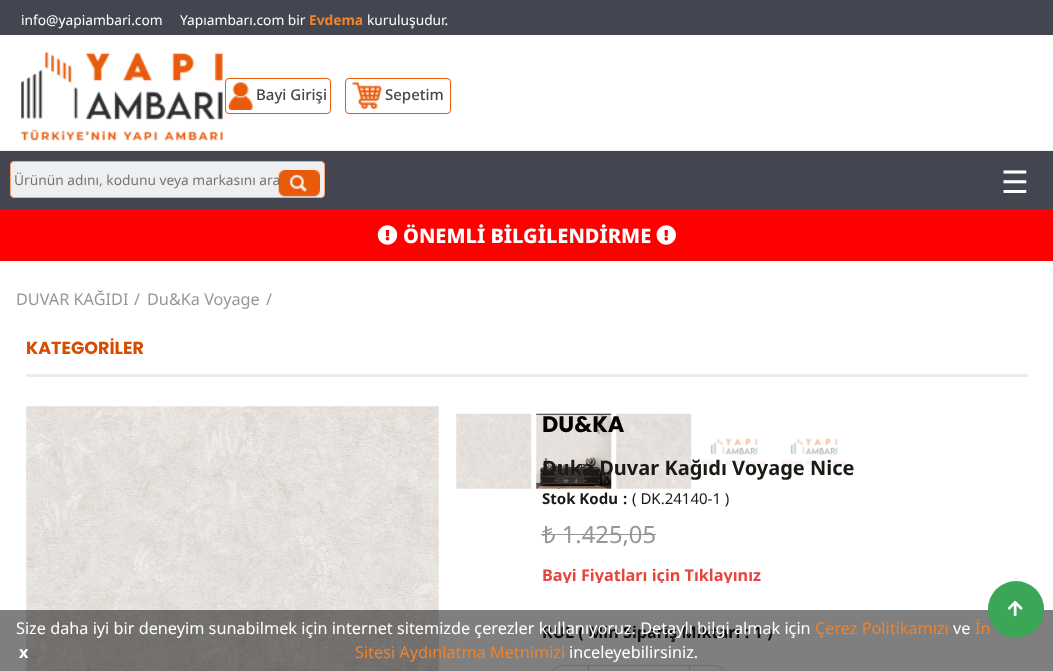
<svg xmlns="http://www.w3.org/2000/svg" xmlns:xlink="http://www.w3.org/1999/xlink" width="1053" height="671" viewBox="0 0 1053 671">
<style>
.cls-1{font:13.75px Noto Sans;fill:#ffffff}
.cls-2{font:bold 13.75px Noto Sans;fill:#f1832a}
.cls-3{font:500 15px Noto Sans;fill:#434650}
.cls-4{font:13.75px Noto Sans;fill:#757575}
.cls-5{font:31px DejaVu Sans;fill:#ffffff}
.cls-6{font:800 20px Noto Sans;fill:#ffffff}
.cls-7{font:16.25px Noto Sans;fill:#979797}
.cls-8{font:bold 17.5px Poppins;fill:#d64d01}
.cls-9{font:bold 22.5px Poppins;fill:#000000}
.cls-10{font:bold 20px Noto Sans;fill:#1a1a17}
.cls-11{font:bold 15px Noto Sans;fill:#1a1a17}
.cls-12{font:15px Noto Sans;fill:#1a1a17}
.cls-13{font:23.75px Noto Sans;fill:#979797}
.cls-14{font:bold 16.25px Noto Sans;fill:#e6453c}
.cls-15{font:bold 16.25px Noto Sans;fill:#1a1a17}
.cls-16{font:16.25px Noto Sans;fill:#ffffff}
.cls-17{font:16.25px Noto Sans;fill:#f1832a}
.cls-18{font:bold 16.25px Noto Sans;fill:#ffffff}
</style>
<defs>
<clipPath id="clip1"><rect x="541" y="566" width="220" height="17"/></clipPath>
</defs>
<rect width="100%" height="100%" fill="#ffffff"/>
<rect fill="#434650" x="0" y="0" width="1053" height="35"/>
<image xlink:href="image0.png" x="21" y="52" width="202" height="89"/>
<rect fill="none" stroke="#e85b0d" x="225.5" y="78.5" width="105" height="35" rx="3.5"/>
<image xlink:href="image1.png" x="228" y="82" width="25" height="28"/>
<rect fill="none" stroke="#e85b0d" x="345.5" y="78.5" width="105" height="35" rx="3.5"/>
<image xlink:href="image2.png" x="352" y="82" width="30" height="27"/>
<rect fill="#434650" x="0" y="151" width="1053" height="58"/>
<rect fill="#edeff0" stroke="#ffa472" x="10.5" y="161.5" width="314" height="36" rx="3.5"/>
<rect fill="#f1f1f1" x="0" y="150" width="1053" height="1"/>
<rect fill="#ff0000" x="0" y="209" width="1053" height="52"/>
<image xlink:href="image4.png" x="377" y="225" width="21" height="20"/>
<image xlink:href="image5.png" x="656" y="225" width="20" height="20"/>
<rect fill="#ececec" x="26" y="374" width="1002" height="3"/>
<image xlink:href="image6.png" x="26" y="406" width="413" height="265"/>
<image xlink:href="image7.png" x="456" y="413" width="76" height="76"/>
<image xlink:href="image8.png" x="536" y="413" width="76" height="76"/>
<image xlink:href="image9.png" x="616" y="413" width="76" height="76"/>
<image xlink:href="image10.png" x="702" y="438" width="64" height="30"/>
<image xlink:href="image11.png" x="782" y="438" width="64" height="30"/>
<rect fill="none" stroke="#d5d5d5" x="551.5" y="665.5" width="174" height="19" rx="12.5"/>
<rect fill="#d5d5d5" x="588" y="665" width="1" height="6"/>
<rect fill="#d5d5d5" x="689" y="665" width="1" height="6"/>
<text class="cls-1" x="21" y="25">info@yapiambari.com</text>
<text class="cls-1" x="180" y="25">Yapıambarı.com bir</text>
<text class="cls-2" x="309" y="25">Evdema</text>
<text class="cls-1" x="367" y="25">kuruluşudur.</text>
<text class="cls-3" x="256" y="100">Bayi Girişi</text>
<text class="cls-3" x="385" y="100">Sepetim</text>
<text class="cls-4" x="14" y="185">Ürünün adını, kodunu veya markasını ara</text>
<image xlink:href="image3.png" x="278" y="170" width="42" height="27"/>
<text class="cls-5" x="1001" y="193">☰</text>
<text class="cls-6" x="403" y="243">ÖNEMLİ BİLGİLENDİRME</text>
<text class="cls-7" x="16" y="305">DUVAR KAĞIDI</text>
<text class="cls-7" x="134" y="305">/</text>
<text class="cls-7" x="147" y="305">Du&amp;Ka Voyage</text>
<text class="cls-7" x="266" y="305">/</text>
<text class="cls-8" x="26" y="354">KATEGORİLER</text>
<text class="cls-9" x="542" y="432">DU&amp;KA</text>
<text class="cls-10" x="542" y="475">Duka Duvar Kağıdı Voyage Nice</text>
<text class="cls-11" x="542" y="504">Stok Kodu</text>
<text class="cls-11" x="623" y="504">:</text>
<text class="cls-12" x="632" y="504">( DK.24140-1 )</text>
<text class="cls-13" x="542" y="543">₺ 1.425,05</text>
<rect fill="#969696" x="541" y="534" width="115" height="1"/>
<g clip-path="url(#clip1)">
<text class="cls-14" x="542" y="581">Bayi Fiyatları için Tıklayınız</text>
</g>
<text class="cls-15" x="542" y="638">RUL ( Min Sipariş Miktarı : 1 )</text>
<rect fill="#000000" fill-opacity="0.5" x="0" y="610" width="1053" height="61"/>
<text class="cls-16" x="16" y="634">Size daha iyi bir deneyim sunabilmek için internet sitemizde çerezler kullanıyoruz. Detaylı bilgi almak için</text>
<text class="cls-17" x="815" y="634">Çerez Politikamızı</text>
<text class="cls-16" x="953" y="634">ve</text>
<text class="cls-17" x="975" y="634">İn</text>
<rect fill="#3aa656" x="988" y="581" width="56" height="57" rx="28"/>
<image xlink:href="image12.png" x="1007" y="600" width="16" height="17"/>
<text class="cls-18" x="19" y="658">x</text>
<text class="cls-17" x="355" y="658">Sitesi Aydınlatma Metnimizi</text>
<text class="cls-16" x="569" y="658">inceleyebilirsiniz.</text>
</svg>
